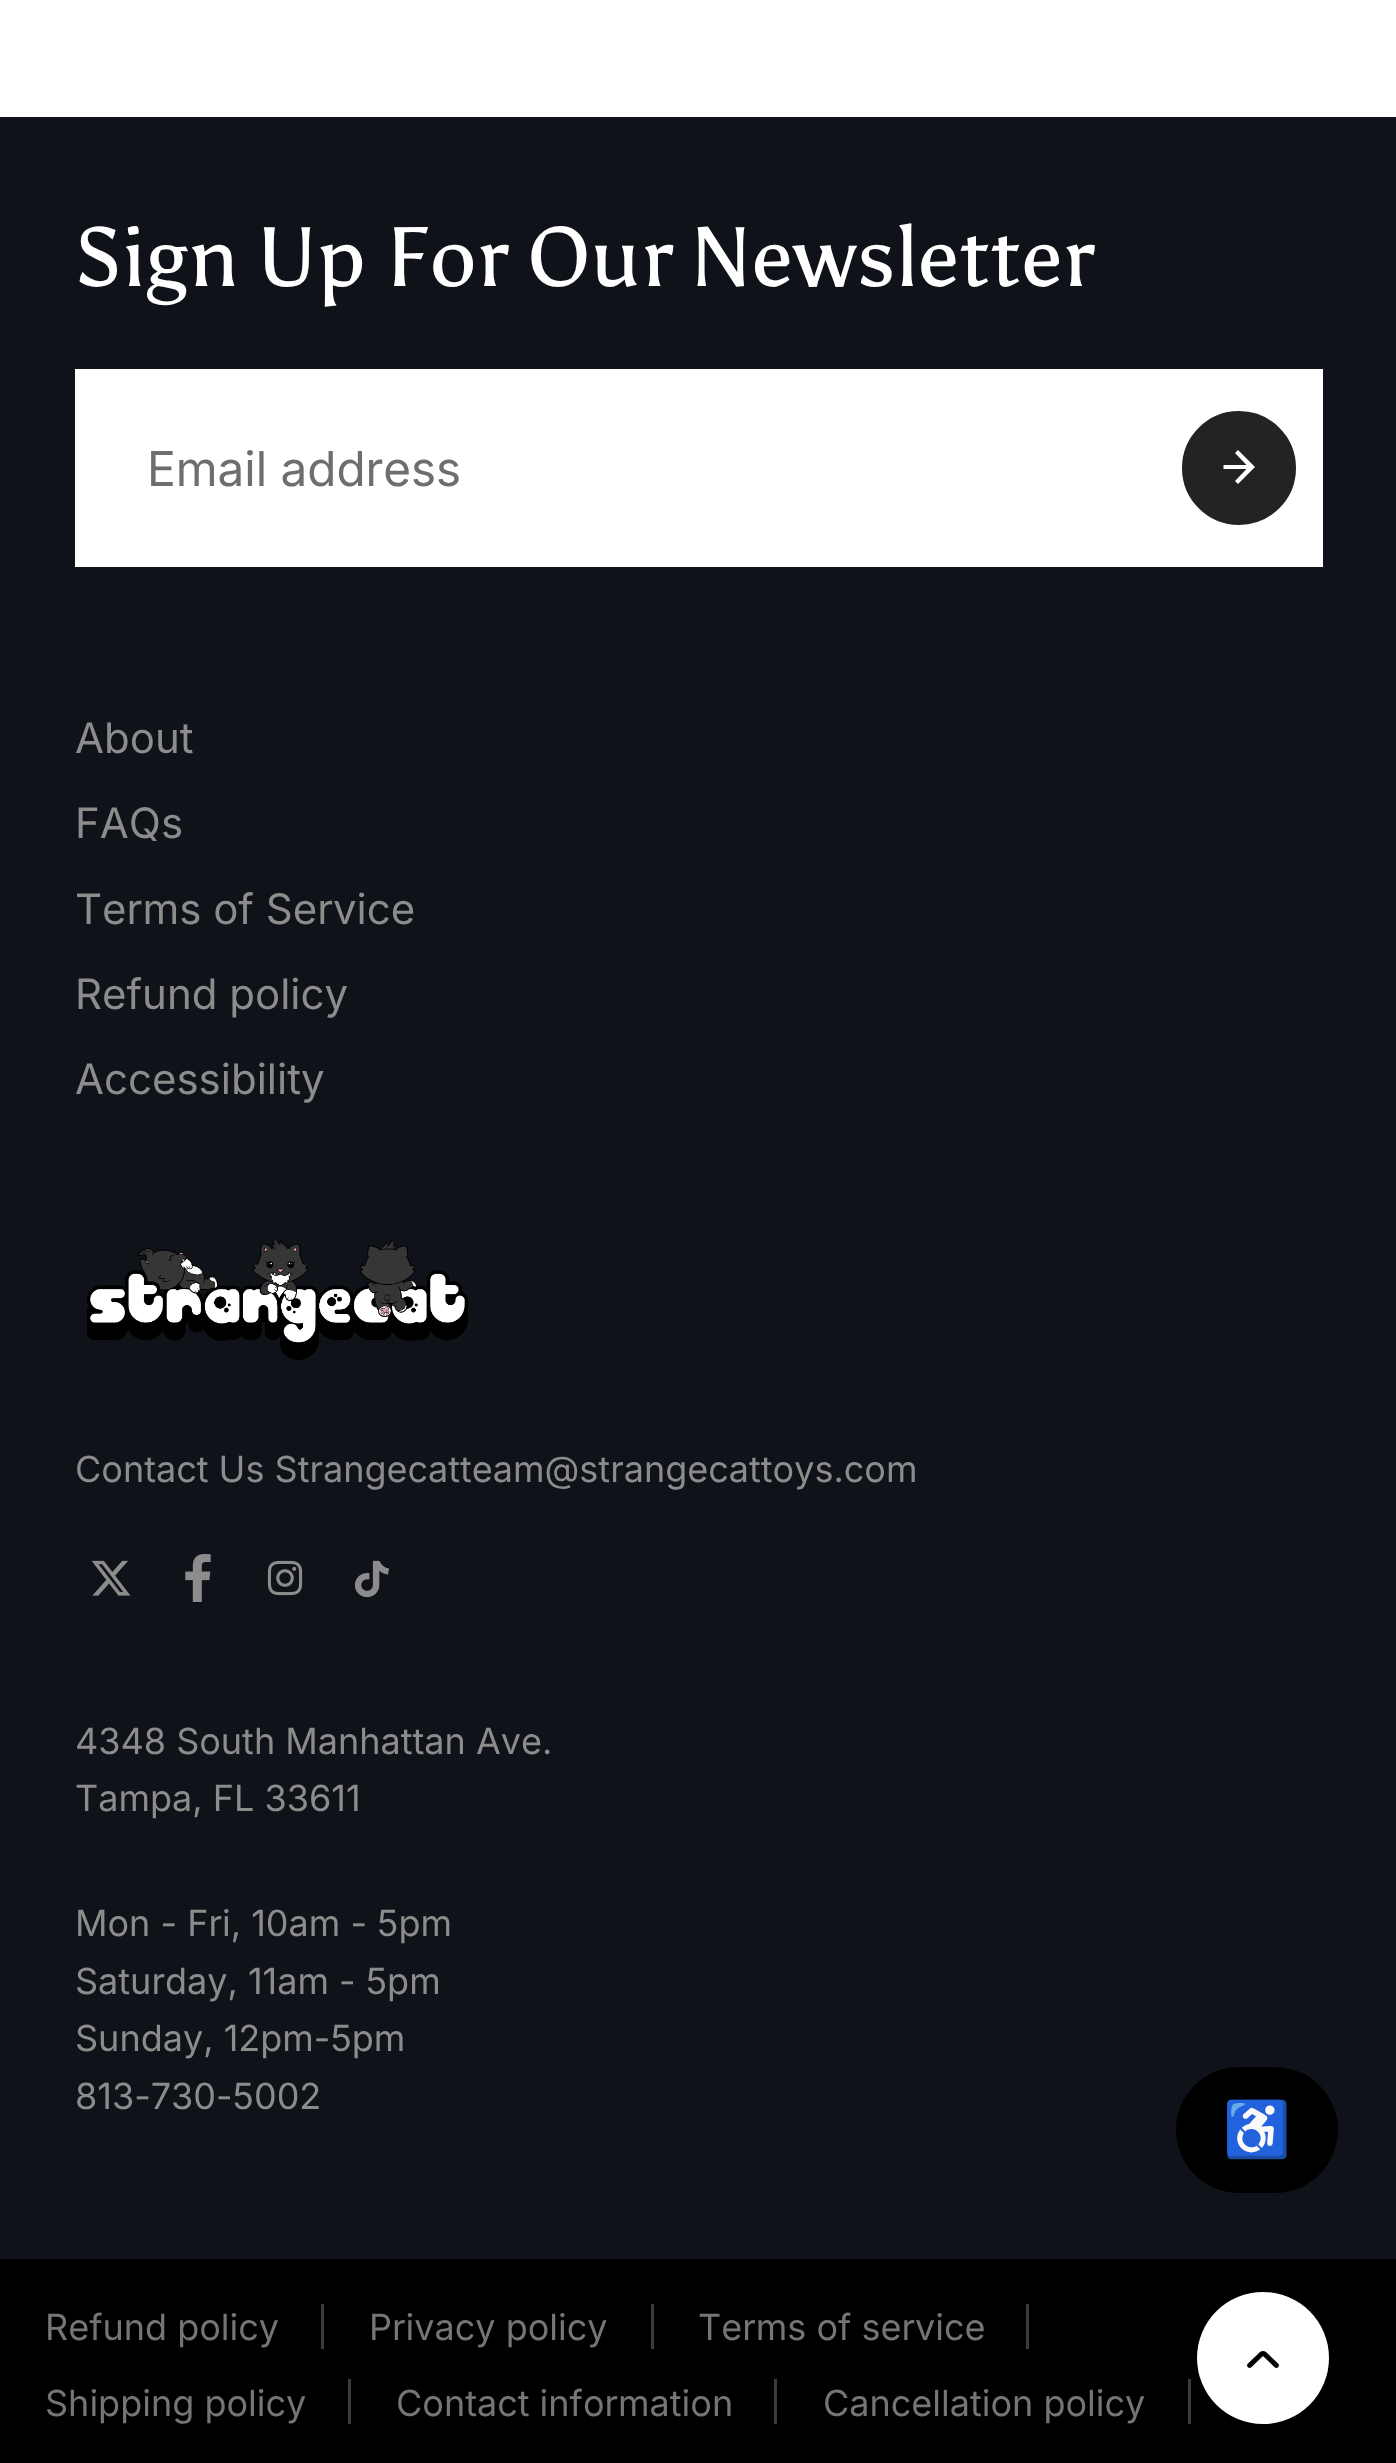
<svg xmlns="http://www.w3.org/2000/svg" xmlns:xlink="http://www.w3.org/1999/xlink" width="1396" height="2463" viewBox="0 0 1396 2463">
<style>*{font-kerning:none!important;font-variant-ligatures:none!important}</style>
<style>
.cls-1{font:84px Asul;fill:#ffffff}
.cls-2{font:48px Inter;fill:#6f6e6d}
.cls-3{font:42px 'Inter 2';fill:#8c8c8c}
.cls-4{font:36px 'Inter 2';fill:#8c8c8c}
.cls-5{font:36px 'Inter 2';fill:#757575}
.cls-6{font:54px Noto Color Emoji;fill:#ffffff}
</style>
<rect width="100%" height="100%" fill="#ffffff"/>
<rect fill="#101219" x="0" y="117" width="1396" height="2142"/>
<rect fill="#ffffff" x="75" y="369" width="1248" height="198"/>
<circle fill="#242322" stroke="#242322" stroke-width="3" cx="1239" cy="468" r="55.5"/>
<path fill="#ffffff" fill-rule="evenodd" d="M1238 450L1255 467L1238 484L1235 481L1246.5 469H1223.5V465H1246.5L1235 453Z"/>
<image xlink:href="image0.png" x="87" y="1238" width="381" height="122"/>
<image xlink:href="image1.png" x="91" y="1560" width="40" height="36"/>
<image xlink:href="image2.png" x="185" y="1554" width="26" height="48"/>
<image xlink:href="image3.png" x="267" y="1560" width="36" height="36"/>
<image xlink:href="image4.png" x="354" y="1560" width="36" height="38"/>
<rect fill="#000000" x="0" y="2259" width="1396" height="204"/>
<rect fill="#3b3b3b" x="321" y="2304" width="3" height="45"/>
<rect fill="#3b3b3b" x="651" y="2304" width="3" height="45"/>
<rect fill="#3b3b3b" x="1026" y="2304" width="3" height="45"/>
<rect fill="#3b3b3b" x="348" y="2379" width="3" height="45"/>
<rect fill="#3b3b3b" x="774" y="2379" width="3" height="45"/>
<rect fill="#3b3b3b" x="1188" y="2379" width="3" height="45"/>
<circle fill="#ffffff" cx="1263" cy="2358" r="66"/>
<image xlink:href="image5.png" x="1247" y="2351" width="32" height="17"/>
<rect fill="#000000" x="1176" y="2067" width="162" height="126" rx="63"/>
<text class="cls-1" x="75" y="286">Sign Up For Our Newsletter</text>
<text class="cls-2" x="147" y="486">Email address</text>
<text class="cls-3" x="75" y="753">About</text>
<text class="cls-3" x="75" y="838">FAQs</text>
<text class="cls-3" x="75" y="924">Terms of Service</text>
<text class="cls-3" x="75" y="1009">Refund policy</text>
<text class="cls-3" x="75" y="1094">Accessibility</text>
<text class="cls-4" x="75" y="1482">Contact Us Strangecatteam@strangecattoys.com</text>
<text class="cls-4"><tspan x="75" y="1754">4348 South Manhattan Ave.</tspan><tspan x="75" y="1811">Tampa, FL 33611</tspan></text>
<text class="cls-4"><tspan x="75" y="1936">Mon - Fri, 10am - 5pm</tspan><tspan x="75" y="1994">Saturday, 11am - 5pm</tspan><tspan x="75" y="2051">Sunday, 12pm-5pm</tspan><tspan x="75" y="2109">813-730-5002</tspan></text>
<text class="cls-5" x="45" y="2340">Refund policy</text>
<text class="cls-5" x="369" y="2340">Privacy policy</text>
<text class="cls-5" x="698" y="2340">Terms of service</text>
<text class="cls-5" x="45" y="2416">Shipping policy</text>
<text class="cls-5" x="396" y="2416">Contact information</text>
<text class="cls-5" x="823" y="2416">Cancellation policy</text>
<text class="cls-6" x="1223" y="2148">♿</text>
</svg>
